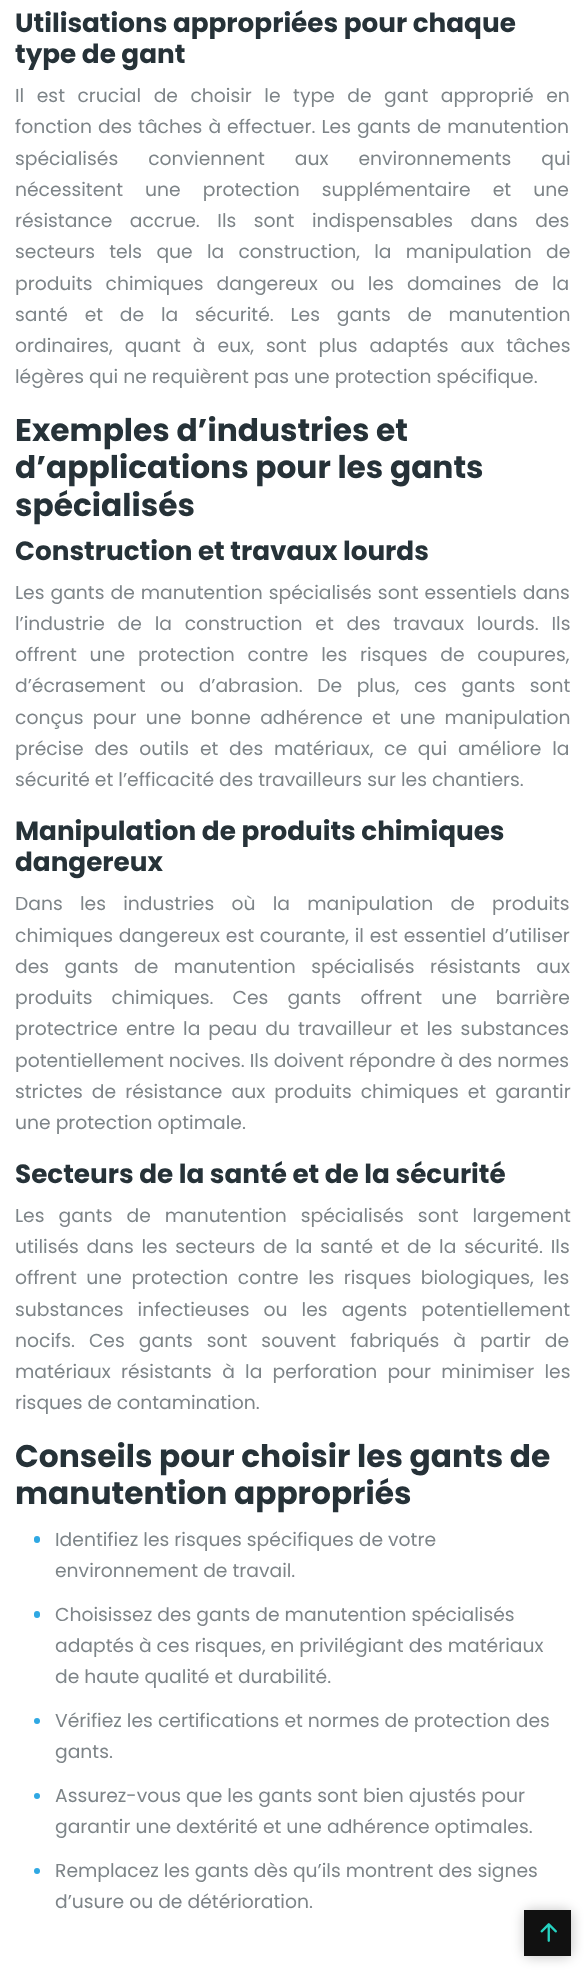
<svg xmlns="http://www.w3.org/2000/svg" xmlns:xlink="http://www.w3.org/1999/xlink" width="584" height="1982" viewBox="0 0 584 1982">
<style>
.cls-1{font:bold 26.25px Poppins;fill:#263238}
.cls-2{font:18.75px Poppins;fill:#7d8488}
.cls-3{font:bold 31.25px Poppins;fill:#263238}
</style>
<rect width="100%" height="100%" fill="#ffffff"/>
<rect fill="#2fa8e3" x="34" y="1536" width="6" height="7" rx="3"/>
<rect fill="#2fa8e3" x="34" y="1611" width="6" height="7" rx="3"/>
<circle fill="#2fa8e3" cx="37" cy="1721" r="3"/>
<circle fill="#2fa8e3" cx="37" cy="1796" r="3"/>
<circle fill="#2fa8e3" cx="37" cy="1871" r="3"/>
<rect fill="#000000" fill-opacity="0.2" filter="blur(6px)" x="523" y="1909" width="50" height="49" rx="9"/>
<rect fill="#111111" x="524" y="1910" width="47" height="46"/>
<image xlink:href="image0.png" x="540" y="1923" width="17" height="19"/>
<text class="cls-1"><tspan x="15" y="32">Utilisations appropriées pour chaque</tspan><tspan x="15" y="63">type de gant</tspan></text>
<text class="cls-2"><tspan x="15" y="102" word-spacing="7.5">Il est crucial de choisir le type de gant approprié en</tspan><tspan x="15" y="133" word-spacing="1">fonction des tâches à effectuer. Les gants de manutention</tspan><tspan x="15" y="165" word-spacing="25">spécialisés conviennent aux environnements qui</tspan><tspan x="15" y="196" word-spacing="17">nécessitent une protection supplémentaire et une</tspan><tspan x="15" y="227" word-spacing="12.5">résistance accrue. Ils sont indispensables dans des</tspan><tspan x="15" y="258" word-spacing="9.25">secteurs tels que la construction, la manipulation de</tspan><tspan x="15" y="290" word-spacing="8">produits chimiques dangereux ou les domaines de la</tspan><tspan x="15" y="321" word-spacing="11.75">santé et de la sécurité. Les gants de manutention</tspan><tspan x="15" y="352" word-spacing="7">ordinaires, quant à eux, sont plus adaptés aux tâches</tspan><tspan x="15" y="383">légères qui ne requièrent pas une protection spécifique.</tspan></text>
<text class="cls-3"><tspan x="15" y="441">Exemples d’industries et</tspan><tspan x="15" y="478">d’applications pour les gants</tspan><tspan x="15" y="516">spécialisés</tspan></text>
<text class="cls-1" x="15" y="560">Construction et travaux lourds</text>
<text class="cls-2"><tspan x="15" y="599" word-spacing="1">Les gants de manutention spécialisés sont essentiels dans</tspan><tspan x="15" y="630" word-spacing="7.75">l’industrie de la construction et des travaux lourds. Ils</tspan><tspan x="15" y="661" word-spacing="7.75">offrent une protection contre les risques de coupures,</tspan><tspan x="15" y="692" word-spacing="9.5">d’écrasement ou d’abrasion. De plus, ces gants sont</tspan><tspan x="15" y="724" word-spacing="4.25">conçus pour une bonne adhérence et une manipulation</tspan><tspan x="15" y="755" word-spacing="5.75">précise des outils et des matériaux, ce qui améliore la</tspan><tspan x="15" y="786">sécurité et l’efficacité des travailleurs sur les chantiers.</tspan></text>
<text class="cls-1"><tspan x="15" y="840">Manipulation de produits chimiques</tspan><tspan x="15" y="871">dangereux</tspan></text>
<text class="cls-2"><tspan x="15" y="910" word-spacing="12.25">Dans les industries où la manipulation de produits</tspan><tspan x="15" y="942" word-spacing="0.75">chimiques dangereux est courante, il est essentiel d’utiliser</tspan><tspan x="15" y="973" word-spacing="10.5">des gants de manutention spécialisés résistants aux</tspan><tspan x="15" y="1004" word-spacing="14">produits chimiques. Ces gants offrent une barrière</tspan><tspan x="15" y="1035" word-spacing="3">protectrice entre la peau du travailleur et les substances</tspan><tspan x="15" y="1067">potentiellement nocives. Ils doivent répondre à des normes</tspan><tspan x="15" y="1098" word-spacing="4">strictes de résistance aux produits chimiques et garantir</tspan><tspan x="15" y="1129">une protection optimale.</tspan></text>
<text class="cls-1" x="15" y="1183">Secteurs de la santé et de la sécurité</text>
<text class="cls-2"><tspan x="15" y="1222" word-spacing="9">Les gants de manutention spécialisés sont largement</tspan><tspan x="15" y="1253" word-spacing="2.75">utilisés dans les secteurs de la santé et de la sécurité. Ils</tspan><tspan x="15" y="1284" word-spacing="4.5">offrent une protection contre les risques biologiques, les</tspan><tspan x="15" y="1316" word-spacing="9">substances infectieuses ou les agents potentiellement</tspan><tspan x="15" y="1347" word-spacing="9">nocifs. Ces gants sont souvent fabriqués à partir de</tspan><tspan x="15" y="1378" word-spacing="5.25">matériaux résistants à la perforation pour minimiser les</tspan><tspan x="15" y="1409">risques de contamination.</tspan></text>
<text class="cls-3"><tspan x="15" y="1467">Conseils pour choisir les gants de</tspan><tspan x="15" y="1504">manutention appropriés</tspan></text>
<text class="cls-2"><tspan x="55" y="1546">Identifiez les risques spécifiques de votre</tspan><tspan x="55" y="1577">environnement de travail.</tspan></text>
<text class="cls-2"><tspan x="55" y="1621">Choisissez des gants de manutention spécialisés</tspan><tspan x="55" y="1652">adaptés à ces risques, en privilégiant des matériaux</tspan><tspan x="55" y="1683">de haute qualité et durabilité.</tspan></text>
<text class="cls-2"><tspan x="55" y="1727">Vérifiez les certifications et normes de protection des</tspan><tspan x="55" y="1758">gants.</tspan></text>
<text class="cls-2"><tspan x="55" y="1802">Assurez-vous que les gants sont bien ajustés pour</tspan><tspan x="55" y="1833">garantir une dextérité et une adhérence optimales.</tspan></text>
<text class="cls-2"><tspan x="55" y="1877">Remplacez les gants dès qu’ils montrent des signes</tspan><tspan x="55" y="1908">d’usure ou de détérioration.</tspan></text>
</svg>
